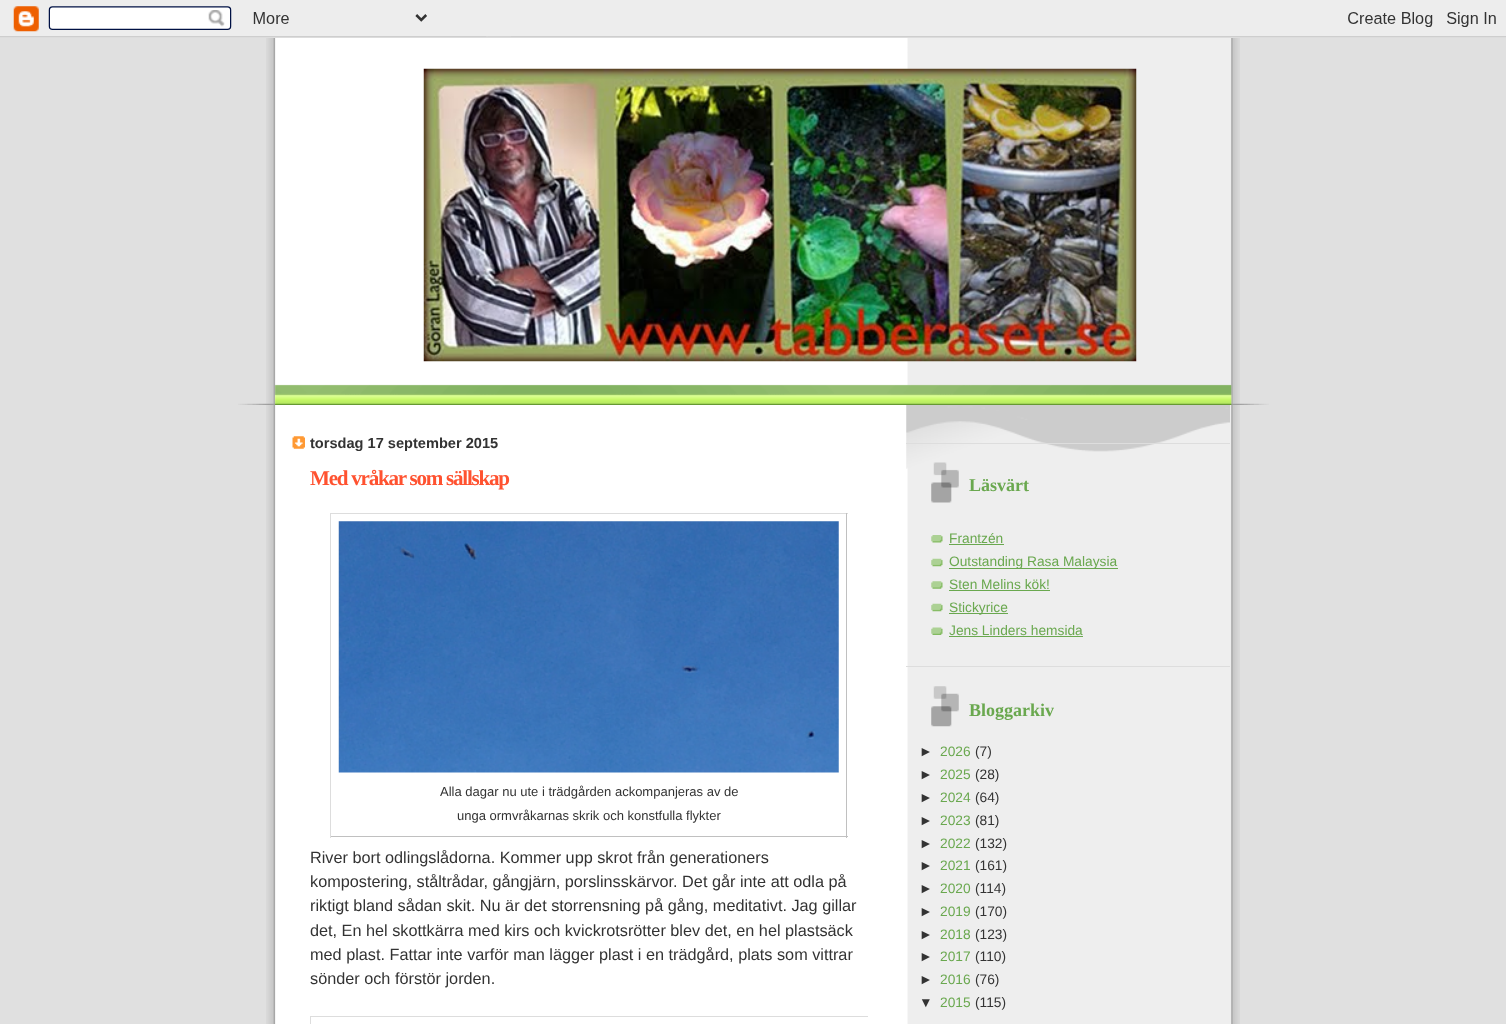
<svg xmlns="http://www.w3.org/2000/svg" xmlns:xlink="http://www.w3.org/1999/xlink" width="1506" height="1024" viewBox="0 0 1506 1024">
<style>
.cls-1{font:bold 14.6px Liberation Sans;fill:#333333}
.cls-2{font:bold 21.1px Liberation Serif;letter-spacing:-1.25px;fill:#ff5230}
.cls-3{font:13px Liberation Sans;fill:#333333}
.cls-4{font:16.25px Liberation Sans;fill:#333333}
.cls-5{font:bold 18px Liberation Serif;fill:#6aa84f}
.cls-6{font:13.75px Liberation Sans;fill:#6aa84f}
.cls-7{font:13.75px Liberation Sans;fill:#333333}
</style>
<rect width="100%" height="100%" fill="#e0e0e0"/>
<image xlink:href="image0.png" x="0" y="0" width="1506" height="38"/>
<image xlink:href="image1.png" x="266" y="38" width="974" height="986"/>
<image xlink:href="image2.png" x="238" y="384" width="1031" height="21"/>
<image xlink:href="image3.png" x="423" y="68" width="714" height="294"/>
<image xlink:href="image4.png" x="292" y="436" width="13" height="13"/>
<rect fill="#dddddd" x="330" y="513" width="518" height="1"/>
<rect fill="#c0c0c0" x="846" y="513" width="1" height="325"/>
<rect fill="#c0c0c0" x="330" y="836" width="518" height="1"/>
<rect fill="#dddddd" x="330" y="513" width="1" height="325"/>
<image xlink:href="image5.png" x="338" y="521" width="501" height="252"/>
<rect fill="#dddddd" x="310" y="1016" width="558" height="1"/>
<rect fill="#dddddd" x="310" y="1016" width="1" height="8"/>
<image xlink:href="image6.png" x="906" y="405" width="324" height="64"/>
<rect fill="#dddddd" x="906" y="443" width="324" height="1"/>
<rect fill="#dddddd" x="906" y="666" width="324" height="1"/>
<image xlink:href="image7.png" x="931" y="462" width="28" height="41"/>
<image xlink:href="image8.png" x="931" y="535" width="12" height="8"/>
<rect fill="#6aa84f" x="949" y="544" width="55" height="1"/>
<image xlink:href="image9.png" x="931" y="558" width="12" height="9"/>
<rect fill="#6aa84f" x="949" y="568" width="169" height="1"/>
<image xlink:href="image10.png" x="931" y="581" width="12" height="8"/>
<rect fill="#6aa84f" x="949" y="590" width="101" height="1"/>
<image xlink:href="image9.png" x="931" y="603" width="12" height="9"/>
<rect fill="#6aa84f" x="949" y="613" width="59" height="1"/>
<image xlink:href="image11.png" x="931" y="627" width="12" height="8"/>
<rect fill="#6aa84f" x="949" y="636" width="134" height="1"/>
<image xlink:href="image12.png" x="931" y="686" width="28" height="41"/>
<text class="cls-1" x="310" y="448">torsdag 17 september 2015</text>
<text class="cls-2" x="310" y="485">Med vråkar som sällskap</text>
<text class="cls-3" x="440" y="796">Alla dagar nu ute i trädgården ackompanjeras av de</text>
<text class="cls-3" x="457" y="820">unga ormvråkarnas skrik och konstfulla flykter</text>
<text class="cls-4"><tspan x="310" y="863">River bort odlingslådorna. Kommer upp skrot från generationers</tspan><tspan x="310" y="887">kompostering, ståltrådar, gångjärn, porslinsskärvor. Det går inte att odla på</tspan><tspan x="310" y="911">riktigt bland sådan skit. Nu är det storrensning på gång, meditativt. Jag gillar</tspan><tspan x="310" y="936">det, En hel skottkärra med kirs och kvickrotsrötter blev det, en hel plastsäck</tspan><tspan x="310" y="960">med plast. Fattar inte varför man lägger plast i en trädgård, plats som vittrar</tspan><tspan x="310" y="984">sönder och förstör jorden.</tspan></text>
<text class="cls-5" x="969" y="491">Läsvärt</text>
<text class="cls-6"><tspan x="949" y="543">Frantzén</tspan><tspan x="949" y="566">Outstanding Rasa Malaysia</tspan><tspan x="949" y="589">Sten Melins kök!</tspan><tspan x="949" y="612">Stickyrice</tspan><tspan x="949" y="635">Jens Linders hemsida</tspan></text>
<text class="cls-5" x="969" y="716">Bloggarkiv</text>
<text class="cls-7" x="919" y="756">►</text>
<text class="cls-6" x="940" y="756">2026</text>
<text class="cls-7" x="975" y="756">(7)</text>
<text class="cls-7" x="919" y="779">►</text>
<text class="cls-6" x="940" y="779">2025</text>
<text class="cls-7" x="975" y="779">(28)</text>
<text class="cls-7" x="919" y="802">►</text>
<text class="cls-6" x="940" y="802">2024</text>
<text class="cls-7" x="975" y="802">(64)</text>
<text class="cls-7" x="919" y="825">►</text>
<text class="cls-6" x="940" y="825">2023</text>
<text class="cls-7" x="975" y="825">(81)</text>
<text class="cls-7" x="919" y="848">►</text>
<text class="cls-6" x="940" y="848">2022</text>
<text class="cls-7" x="975" y="848">(132)</text>
<text class="cls-7" x="919" y="870">►</text>
<text class="cls-6" x="940" y="870">2021</text>
<text class="cls-7" x="975" y="870">(161)</text>
<text class="cls-7" x="919" y="893">►</text>
<text class="cls-6" x="940" y="893">2020</text>
<text class="cls-7" x="975" y="893">(114)</text>
<text class="cls-7" x="919" y="916">►</text>
<text class="cls-6" x="940" y="916">2019</text>
<text class="cls-7" x="975" y="916">(170)</text>
<text class="cls-7" x="919" y="939">►</text>
<text class="cls-6" x="940" y="939">2018</text>
<text class="cls-7" x="975" y="939">(123)</text>
<text class="cls-7" x="919" y="961">►</text>
<text class="cls-6" x="940" y="961">2017</text>
<text class="cls-7" x="975" y="961">(110)</text>
<text class="cls-7" x="919" y="984">►</text>
<text class="cls-6" x="940" y="984">2016</text>
<text class="cls-7" x="975" y="984">(76)</text>
<text class="cls-7" x="919" y="1007">▼</text>
<text class="cls-6" x="940" y="1007">2015</text>
<text class="cls-7" x="975" y="1007">(115)</text>
</svg>
